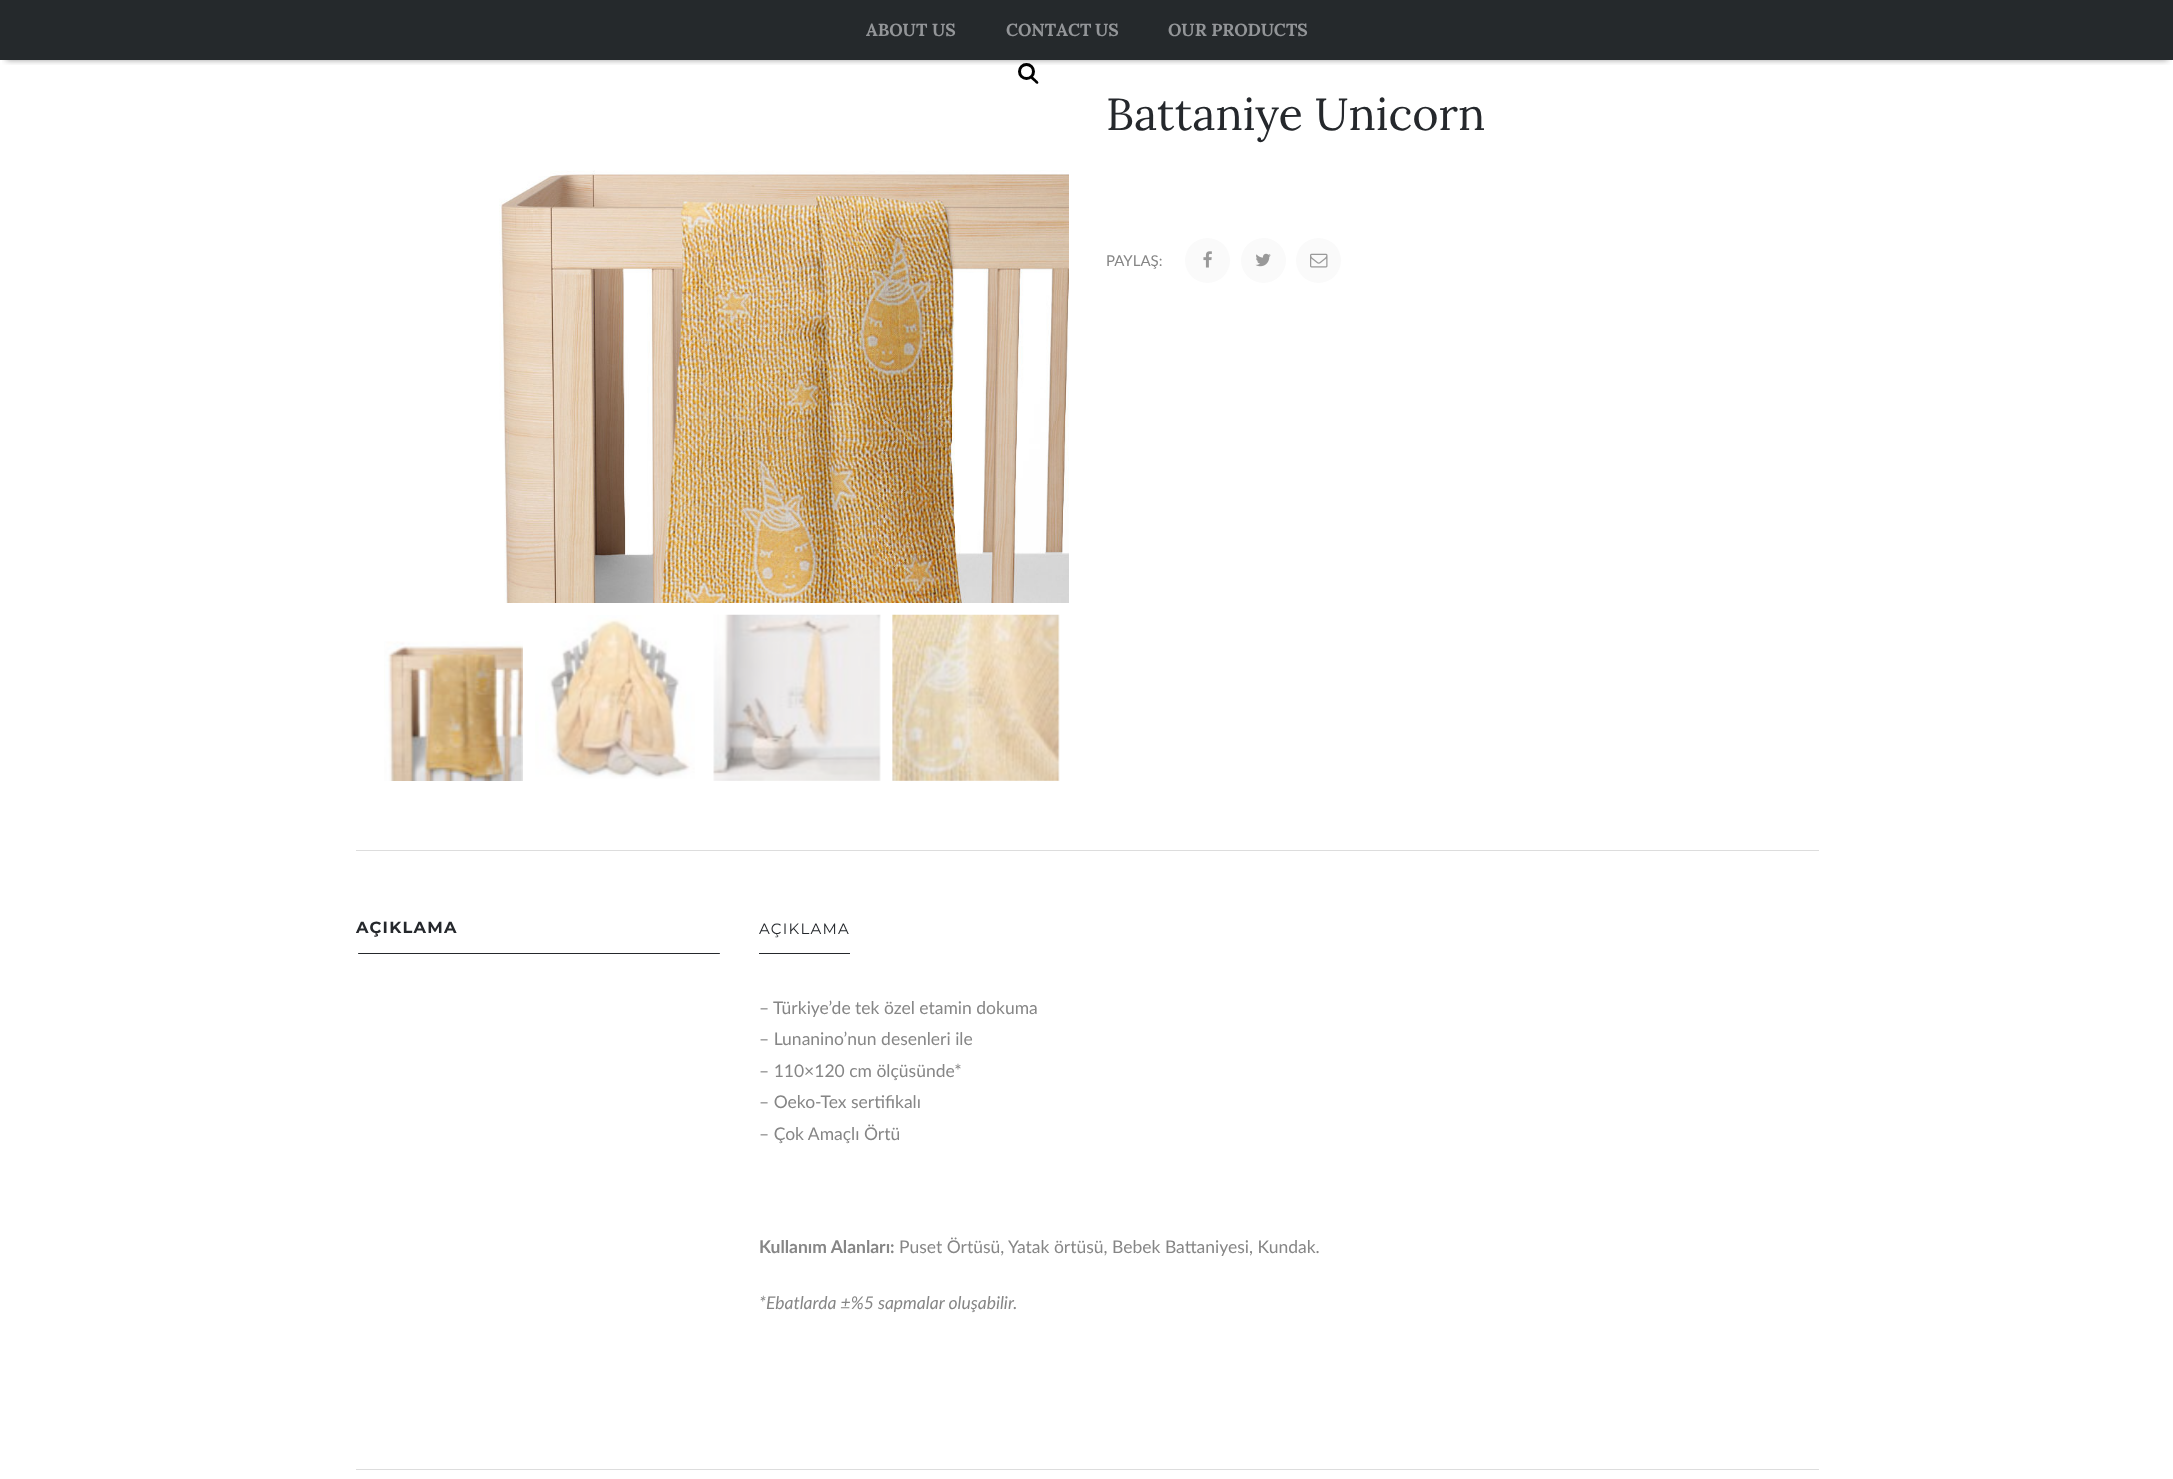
<svg xmlns="http://www.w3.org/2000/svg" xmlns:xlink="http://www.w3.org/1999/xlink" width="2173" height="1479" viewBox="0 0 2173 1479">
<style>
.cls-1{font:bold 17.5px Lora;fill:#939598}
.cls-2{font:45px Lora;fill:#25282c}
.cls-3{font:15px Lato;fill:#868686}
.cls-4{font:bold 16.25px Montserrat;letter-spacing:1.25px;fill:#25282c}
.cls-5{font:15px Montserrat;letter-spacing:1.25px;fill:#25282c}
.cls-6{font:17.5px Lato;fill:#868686}
.cls-7{font:bold 17.5px Lato;fill:#868686}
.cls-8{font:italic 17.5px Lato;fill:#868686}
</style>
<defs>
<clipPath id="clip1"><rect x="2" y="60" width="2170" height="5"/></clipPath>
<clipPath id="clip2"><rect x="356" y="914" width="365" height="40"/></clipPath>
</defs>
<rect width="100%" height="100%" fill="#ffffff"/>
<rect fill="#25292c" x="0" y="0" width="2173" height="60"/>
<circle fill="none" stroke="#000000" stroke-width="3" cx="1026.5" cy="71.5" r="7"/>
<g clip-path="url(#clip1)">
<rect fill="#000000" fill-opacity="0.4" filter="blur(3px)" x="6" y="13" width="2162" height="47"/>
</g>
<rect fill="#dddddd" x="356" y="850" width="1463" height="1"/>
<path fill="#000000" d="M1031 76.5C1032.5 75 1034.5 78.5 1035.5 79C1036 80 1039.5 82 1038 83.5C1036.5 85 1034.5 81.5 1033.5 81C1032.5 80 1029.5 78 1031 76.5Z"/>
<image xlink:href="image0.png" x="499" y="170" width="570" height="433"/>
<image xlink:href="image1.png" x="384" y="641" width="139" height="140"/>
<image xlink:href="image2.png" x="535" y="615" width="160" height="164"/>
<image xlink:href="image3.png" x="713" y="614" width="168" height="167"/>
<image xlink:href="image4.png" x="892" y="614" width="168" height="167"/>
<circle fill="#fafafa" cx="1207.5" cy="260.5" r="22.5"/>
<image xlink:href="image5.png" x="1203" y="251" width="9" height="17"/>
<circle fill="#fafafa" cx="1263.5" cy="260.5" r="22.5"/>
<image xlink:href="image6.png" x="1255" y="253" width="16" height="14"/>
<circle fill="#fafafa" cx="1318.5" cy="260.5" r="22.5"/>
<image xlink:href="image7.png" x="1310" y="253" width="18" height="15"/>
<rect fill="#dddddd" x="356" y="1469" width="1463" height="1"/>
<rect fill="#25282c" x="356" y="953" width="365" height="1"/>
<g clip-path="url(#clip2)">
<path fill="#ffffff" d="M353 953.5V956C357 956 359 954 359 950H356C355.5 951.5 354.5 953 353 953.5Z"/>
<path fill="#ffffff" d="M719 950C719 954 721 956 725 956V953.5C723 953 722 952 721.5 950Z"/>
</g>
<rect fill="#25282c" x="759" y="953" width="91" height="1"/>
<text class="cls-1" x="866" y="36">ABOUT US</text>
<text class="cls-1" x="1006" y="36" word-spacing="-1">CONTACT US</text>
<text class="cls-1" x="1168" y="36">OUR PRODUCTS</text>
<text class="cls-2" x="1106" y="130">Battaniye Unicorn</text>
<text class="cls-3" x="1106" y="266">PAYLAŞ:</text>
<text class="cls-4" x="356" y="933">AÇIKLAMA</text>
<text class="cls-5" x="759" y="934">AÇIKLAMA</text>
<text class="cls-6"><tspan x="759" y="1014">– Türkiye’de tek özel etamin dokuma</tspan><tspan x="759" y="1045">– Lunanino’nun desenleri ile</tspan><tspan x="759" y="1077">– 110×120 cm ölçüsünde*</tspan><tspan x="759" y="1108">– Oeko-Tex sertifikalı</tspan><tspan x="759" y="1140">– Çok Amaçlı Örtü</tspan></text>
<text class="cls-7" x="759" y="1253">Kullanım Alanları:</text>
<text class="cls-6" x="899" y="1253">Puset Örtüsü, Yatak örtüsü, Bebek Battaniyesi, Kundak.</text>
<text class="cls-8" x="759" y="1309">*Ebatlarda ±%5 sapmalar oluşabilir.</text>
</svg>
